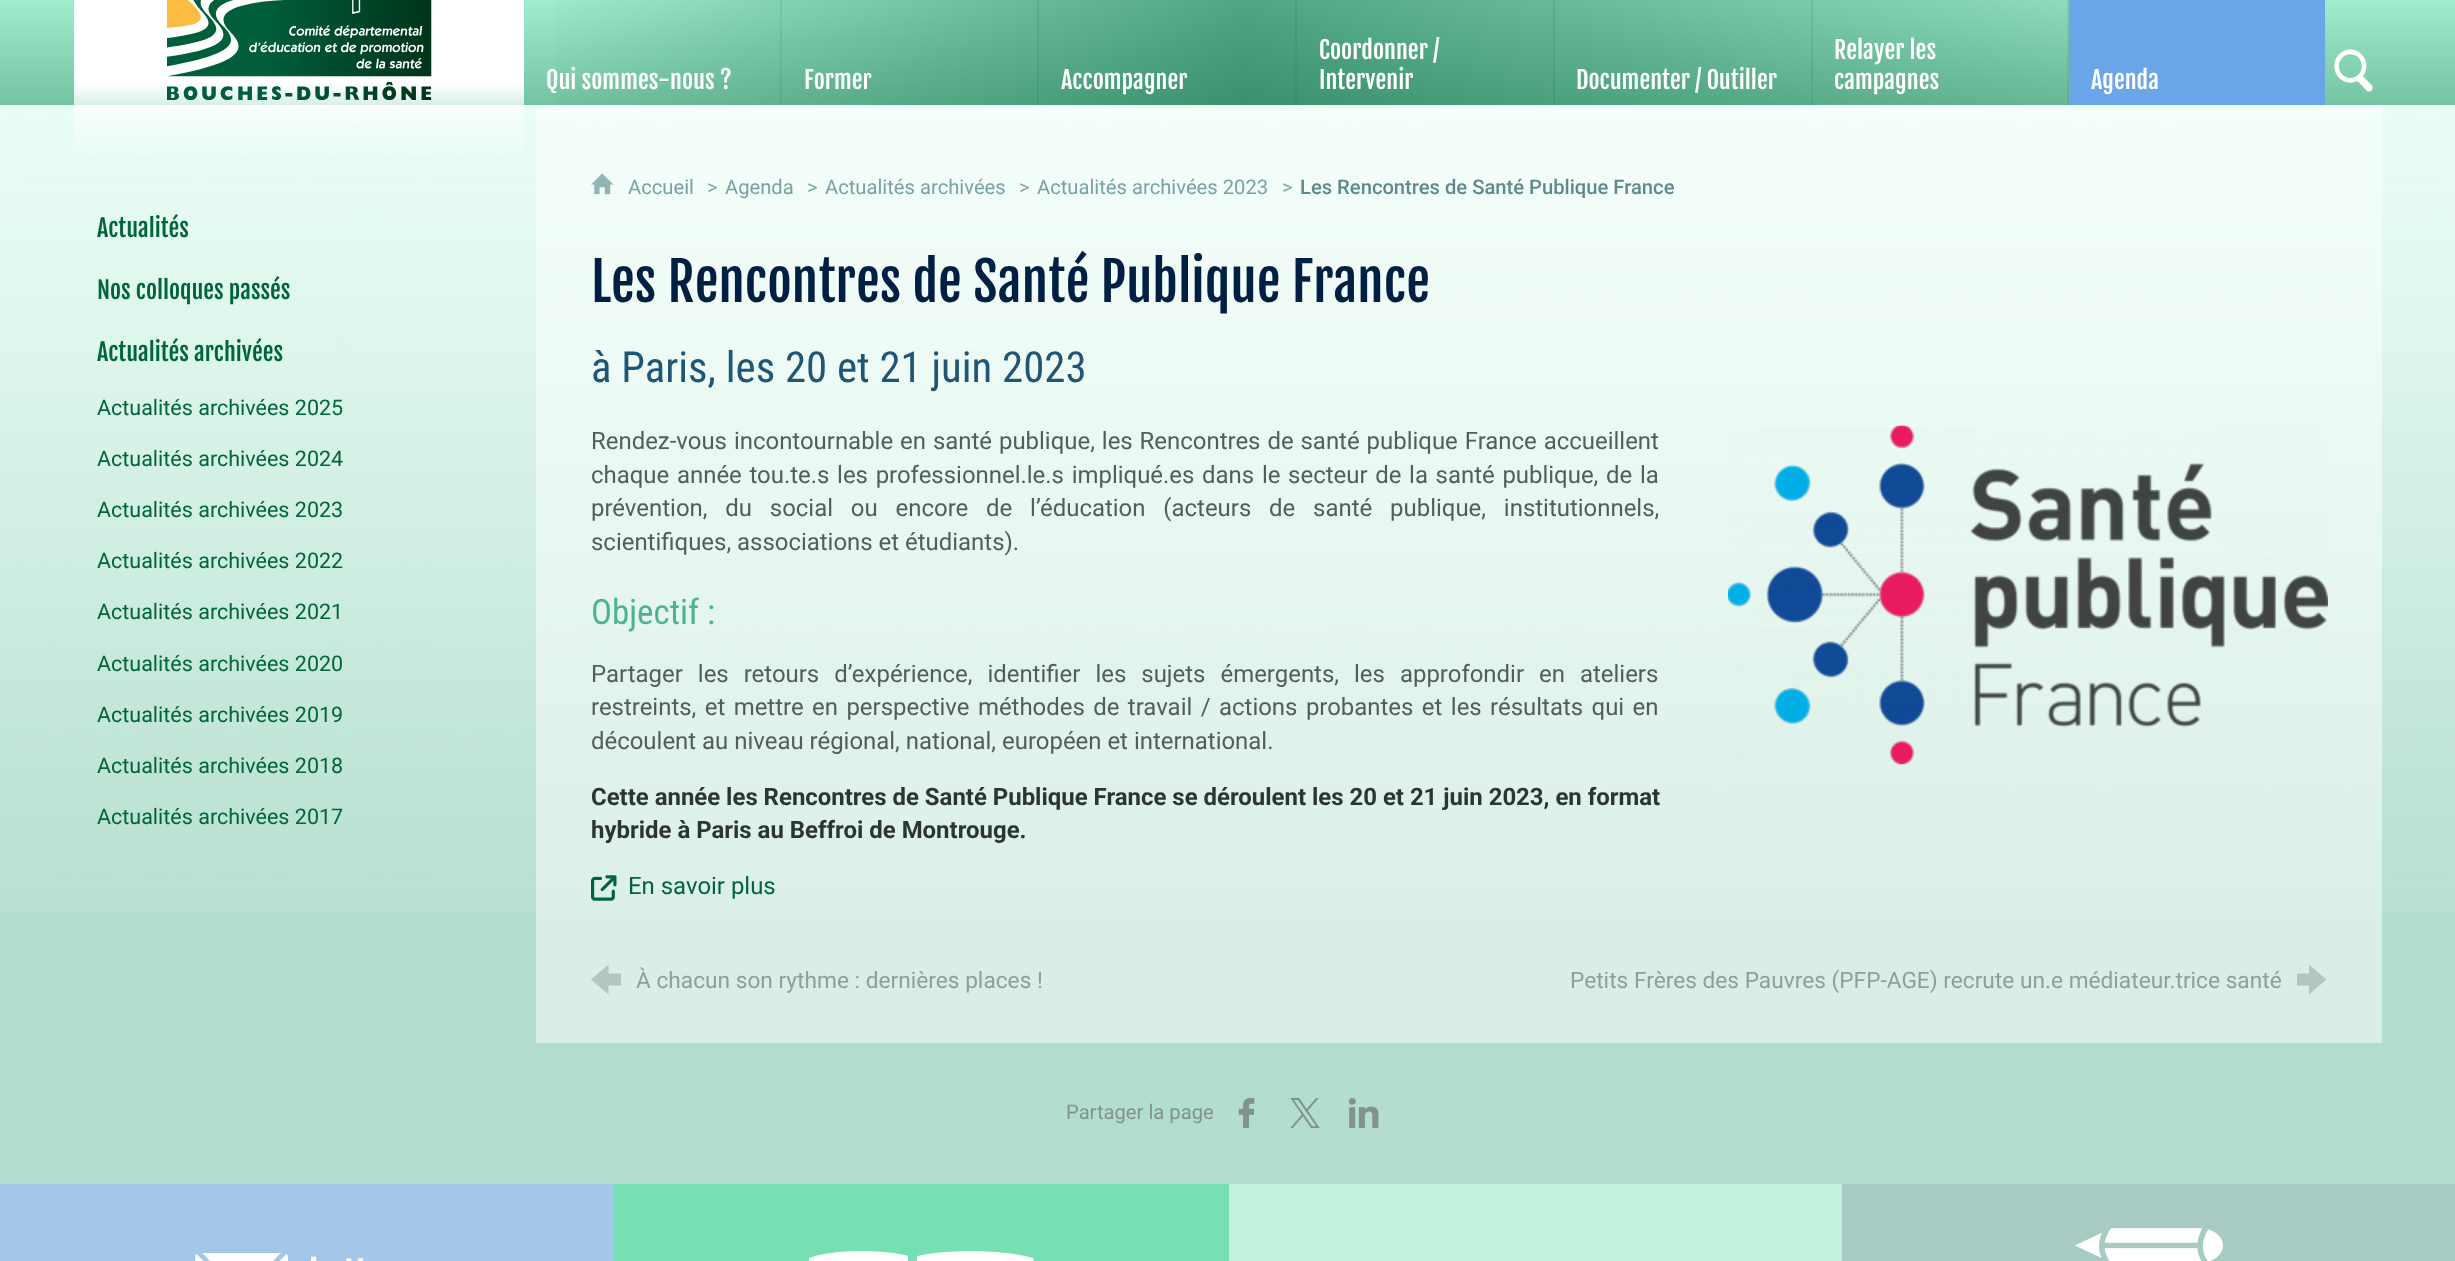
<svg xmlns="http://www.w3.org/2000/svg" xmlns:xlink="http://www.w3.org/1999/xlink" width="2455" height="1261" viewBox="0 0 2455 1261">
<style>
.cls-1{font:23.95px Fjalla One;fill:#ffffff}
.cls-2{font:23.75px Fjalla One;fill:#00653e}
.cls-3{font:21.5px Roboto;fill:#00653e}
.cls-4{font:20.2px Roboto;fill:#77a3a3}
.cls-5{font:500 20.2px Roboto;fill:#5d8a8a}
.cls-6{font:52.9px Fjalla One;fill:#001f42}
.cls-7{font:42.8px Roboto Condensed;fill:#205675}
.cls-8{font:23.95px Roboto;fill:#505f59}
.cls-9{font:35px Roboto Condensed;fill:#4cb392}
.cls-10{font:bold 23.95px Roboto;fill:#2d3532}
.cls-11{font:23.95px Roboto;fill:#00653e}
.cls-12{font:22.7px Roboto;fill:#8ea099}
.cls-13{font:20.2px Roboto;fill:#81948c}
</style>
<defs>
<linearGradient id="g1" gradientUnits="userSpaceOnUse" x1="1228" y1="0" x2="1228" y2="105"><stop offset="0" stop-color="#a0edce"/><stop offset="1" stop-color="#74c3a2"/></linearGradient>
<linearGradient id="g2" gradientUnits="userSpaceOnUse" x1="299" y1="-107" x2="299" y2="164"><stop offset="0.1" stop-color="#ffffff"/><stop offset="0.7" stop-color="#ffffff"/><stop offset="1" stop-color="#ffffff" stop-opacity="0"/></linearGradient>
<linearGradient id="g3" gradientUnits="userSpaceOnUse" x1="524" y1="53" x2="2325" y2="52"><stop offset="0" stop-color="#005f3b" stop-opacity="0"/><stop offset="0.4" stop-color="#005f3b" stop-opacity="0.5"/><stop offset="1" stop-color="#005f3b" stop-opacity="0"/></linearGradient>
<clipPath id="clip1"><rect x="2297" y="965" width="30" height="30"/></clipPath>
</defs>
<rect width="100%" height="100%" fill="#b3ddcc"/>
<image xlink:href="image0.png" x="0" y="105" width="2455" height="808"/>
<rect fill="url(#g1)" x="0" y="0" width="2455" height="105"/>
<rect fill="url(#g2)" x="74" y="0" width="450" height="155"/>
<image xlink:href="image1.png" x="167" y="0" width="265" height="100"/>
<rect fill="url(#g3)" x="555" y="0" width="1514" height="105"/>
<rect fill="#005f3b" fill-opacity="0.1" x="780" y="0" width="2" height="105"/>
<rect fill="#005f3b" fill-opacity="0.1" x="1037" y="0" width="2" height="105"/>
<rect fill="#005f3b" fill-opacity="0.1" x="1295" y="0" width="2" height="105"/>
<rect fill="#005f3b" fill-opacity="0.1" x="1553" y="0" width="2" height="105"/>
<rect fill="#005f3b" fill-opacity="0.1" x="1811" y="0" width="2" height="105"/>
<rect fill="#005f3b" fill-opacity="0.1" x="2067" y="0" width="2" height="105"/>
<rect fill="#6aa5e7" x="2069" y="0" width="256" height="105"/>
<image xlink:href="image2.png" x="2334" y="49" width="39" height="43"/>
<rect fill="#ffffff" fill-opacity="0.5" x="536" y="105" width="1846" height="938"/>
<image xlink:href="image3.png" x="591" y="173" width="23" height="22"/>
<image xlink:href="image4.png" x="1728" y="425" width="600" height="340"/>
<image xlink:href="image5.png" x="591" y="875" width="26" height="26"/>
<path fill="#b4c7bf" d="M608.5 985.5H621V973.5H608.5V964.5L591 979.5L608.5 994.5V985.5"/>
<g clip-path="url(#clip1)">
<path fill="#b4c7bf" d="M2309 985.5V994.5L2326.5 979.5L2309 964.5V973.5H2296.5V985.5H2309"/>
</g>
<image xlink:href="image6.png" x="1238" y="1098" width="17" height="30"/>
<image xlink:href="image7.png" x="1290" y="1098" width="30" height="30"/>
<image xlink:href="image8.png" x="1349" y="1098" width="30" height="30"/>
<rect fill="#a4c7e7" x="0" y="1184" width="614" height="77"/>
<image xlink:href="image9.png" x="195" y="1253" width="168" height="8"/>
<rect fill="#76dfb4" x="614" y="1184" width="615" height="77"/>
<image xlink:href="image10.png" x="809" y="1251" width="225" height="10"/>
<rect fill="#c1f2de" x="1229" y="1184" width="613" height="77"/>
<rect fill="#a7cac3" x="1842" y="1184" width="613" height="77"/>
<image xlink:href="image11.png" x="2075" y="1228" width="148" height="33"/>
<text class="cls-1" x="546" y="89">Qui sommes-nous ?</text>
<text class="cls-1" x="804" y="89">Former</text>
<text class="cls-1" x="1061" y="89">Accompagner</text>
<text class="cls-1"><tspan x="1319" y="59">Coordonner /</tspan><tspan x="1319" y="89">Intervenir</tspan></text>
<text class="cls-1" x="1576" y="89">Documenter / Outiller</text>
<text class="cls-1"><tspan x="1834" y="59">Relayer les</tspan><tspan x="1834" y="89">campagnes</tspan></text>
<text class="cls-1" x="2091" y="89">Agenda</text>
<text class="cls-2" x="97" y="237">Actualités</text>
<text class="cls-2" x="97" y="299">Nos colloques passés</text>
<text class="cls-2" x="97" y="361">Actualités archivées</text>
<text class="cls-3" x="97" y="415">Actualités archivées 2025</text>
<text class="cls-3" x="97" y="466">Actualités archivées 2024</text>
<text class="cls-3" x="97" y="517">Actualités archivées 2023</text>
<text class="cls-3" x="97" y="568">Actualités archivées 2022</text>
<text class="cls-3" x="97" y="619">Actualités archivées 2021</text>
<text class="cls-3" x="97" y="671">Actualités archivées 2020</text>
<text class="cls-3" x="97" y="722">Actualités archivées 2019</text>
<text class="cls-3" x="97" y="773">Actualités archivées 2018</text>
<text class="cls-3" x="97" y="824">Actualités archivées 2017</text>
<text class="cls-4" x="628" y="194">Accueil</text>
<text class="cls-4" x="707" y="194">&gt;</text>
<text class="cls-4" x="725" y="194">Agenda</text>
<text class="cls-4" x="807" y="194">&gt;</text>
<text class="cls-4" x="825" y="194">Actualités archivées</text>
<text class="cls-4" x="1019" y="194">&gt;</text>
<text class="cls-4" x="1037" y="194">Actualités archivées 2023</text>
<text class="cls-4" x="1282" y="194">&gt;</text>
<text class="cls-5" x="1300" y="194">Les Rencontres de Santé Publique France</text>
<text class="cls-6" x="591" y="302">Les Rencontres de Santé Publique France</text>
<text class="cls-7" x="591" y="382">à Paris, les 20 et 21 juin 2023</text>
<text class="cls-8"><tspan x="591" y="449" word-spacing="1">Rendez-vous incontournable en santé publique, les Rencontres de santé publique France accueillent</tspan><tspan x="591" y="483" word-spacing="1.75">chaque année tou.te.s les professionnel.le.s impliqué.es dans le secteur de la santé publique, de la</tspan><tspan x="591" y="516" word-spacing="11.9">prévention, du social ou encore de l’éducation (acteurs de santé publique, institutionnels,</tspan><tspan x="591" y="550">scientifiques, associations et étudiants).</tspan></text>
<text class="cls-9" x="591" y="624">Objectif :</text>
<text class="cls-8"><tspan x="591" y="682" word-spacing="9.1">Partager les retours d’expérience, identifier les sujets émergents, les approfondir en ateliers</tspan><tspan x="591" y="715" word-spacing="2.5">restreints, et mettre en perspective méthodes de travail / actions probantes et les résultats qui en</tspan><tspan x="591" y="749">découlent au niveau régional, national, européen et international.</tspan></text>
<text class="cls-10"><tspan x="591" y="805">Cette année les Rencontres de Santé Publique France se déroulent les 20 et 21 juin 2023, en format</tspan><tspan x="591" y="838">hybride à Paris au Beffroi de Montrouge.</tspan></text>
<text class="cls-11" x="628" y="894">En savoir plus</text>
<text class="cls-12" x="636" y="988">À chacun son rythme : dernières places !</text>
<text class="cls-12" x="1570" y="988">Petits Frères des Pauvres (PFP-AGE) recrute un.e médiateur.trice santé</text>
<text class="cls-13" x="1066" y="1119">Partager la page</text>
</svg>
